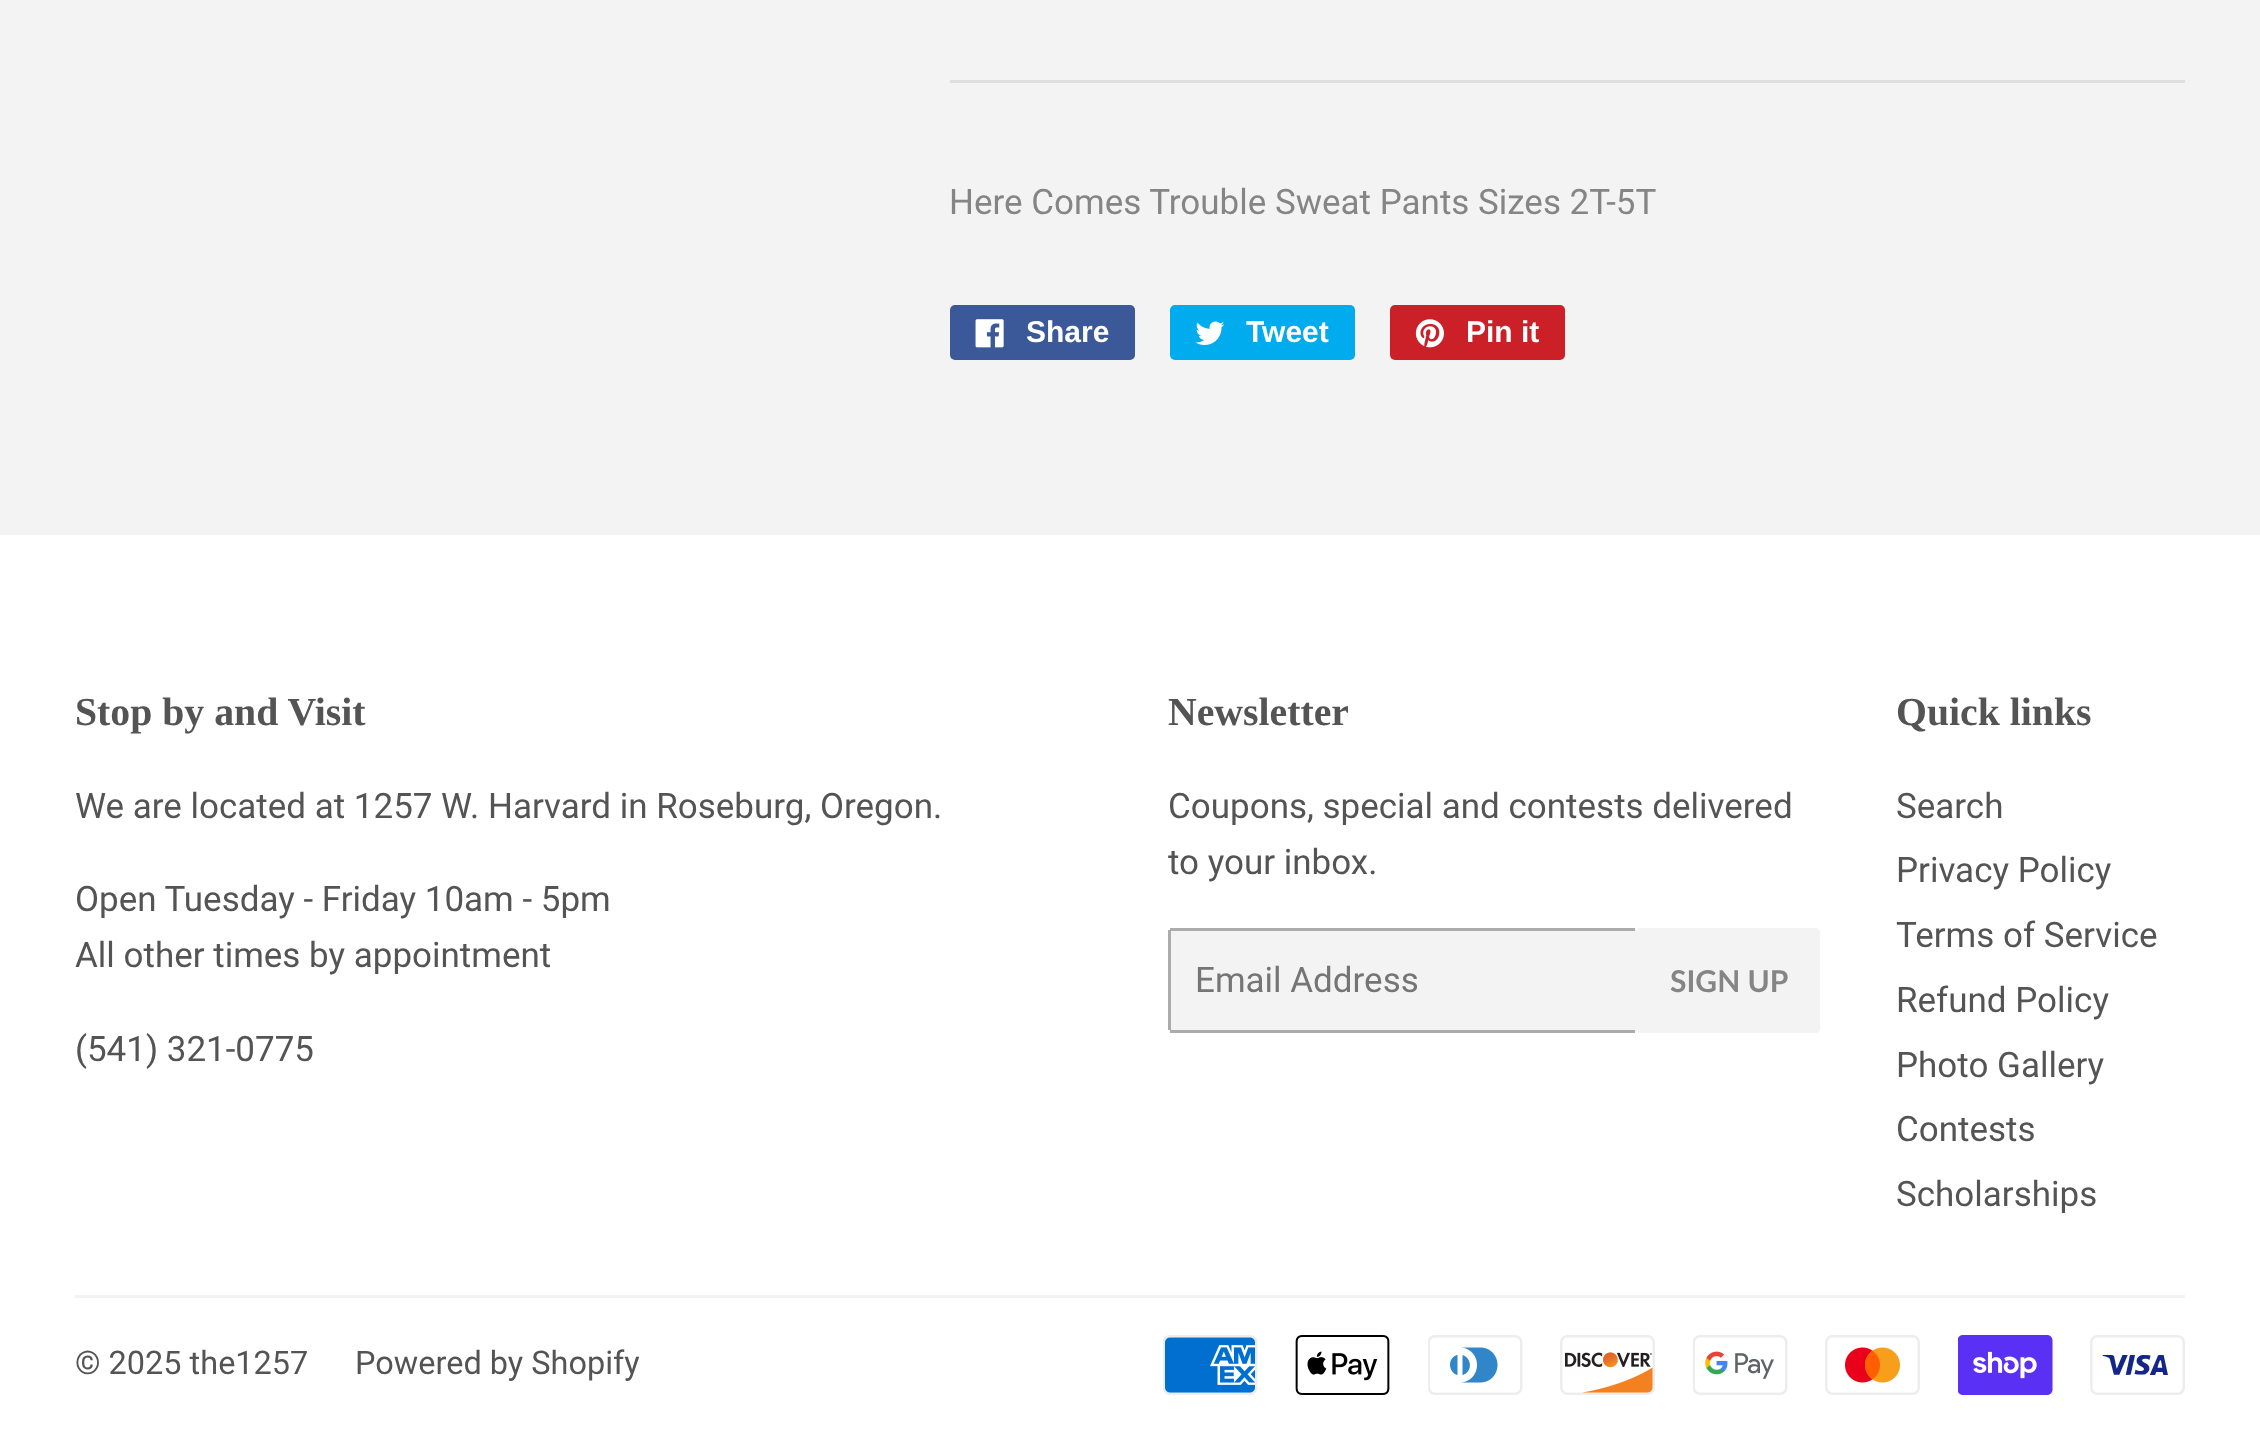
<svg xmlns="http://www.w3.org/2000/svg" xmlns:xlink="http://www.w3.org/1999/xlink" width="2260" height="1444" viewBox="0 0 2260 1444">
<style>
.cls-1{font:35px Roboto;fill:#858585}
.cls-2{font:bold 30px Liberation Sans;fill:#ffffff}
.cls-3{font:bold 39.75px Liberation Serif;fill:#545454}
.cls-4{font:35px Roboto;fill:#545454}
.cls-5{font:35px Roboto;fill:#757575}
.cls-6{font:bold 30px Lato;fill:#858585}
.cls-7{font:32.5px Roboto;fill:#545454}
</style>
<rect width="100%" height="100%" fill="#f3f3f3"/>
<rect fill="#dedede" x="950" y="80" width="1235" height="3"/>
<rect fill="#3b5998" x="950" y="305" width="185" height="55" rx="5"/>
<image xlink:href="image0.png" x="975" y="319" width="29" height="29"/>
<rect fill="#00aced" x="1170" y="305" width="185" height="55" rx="5"/>
<image xlink:href="image1.png" x="1195" y="321" width="30" height="24"/>
<rect fill="#cb2027" x="1390" y="305" width="175" height="55" rx="5"/>
<image xlink:href="image2.png" x="1415" y="319" width="29" height="29"/>
<rect fill="#ffffff" x="0" y="535" width="2260" height="909"/>
<rect fill="#f3f3f3" x="1168" y="928" width="470" height="105" rx="5"/>
<rect fill="#ababab" x="1170" y="928" width="465" height="3"/>
<rect fill="#ababab" x="1170" y="1030" width="465" height="3"/>
<rect fill="#ababab" x="1168" y="930" width="3" height="100"/>
<path fill="#f3f3f3" d="M1638 928H1815C1818 928 1820 930 1820 933V1028C1820 1031 1818 1033 1815 1033H1638Z"/>
<rect fill="#f2f2f2" x="75" y="1295" width="2110" height="3"/>
<image xlink:href="image3.png" x="1163" y="1335" width="95" height="60"/>
<image xlink:href="image4.png" x="1295" y="1335" width="95" height="60"/>
<image xlink:href="image5.png" x="1428" y="1335" width="95" height="60"/>
<image xlink:href="image6.png" x="1560" y="1335" width="95" height="60"/>
<image xlink:href="image7.png" x="1693" y="1335" width="95" height="60"/>
<image xlink:href="image8.png" x="1825" y="1335" width="95" height="60"/>
<image xlink:href="image9.png" x="1958" y="1335" width="95" height="60"/>
<image xlink:href="image10.png" x="2090" y="1335" width="95" height="60"/>
<text class="cls-1" x="949" y="214">Here Comes Trouble Sweat Pants Sizes 2T-5T</text>
<text class="cls-2" x="1026" y="342">Share</text>
<text class="cls-2" x="1246" y="342">Tweet</text>
<text class="cls-2" x="1466" y="342">Pin it</text>
<text class="cls-3" x="75" y="725">Stop by and Visit</text>
<text class="cls-4" x="75" y="818">We are located at 1257 W. Harvard in Roseburg, Oregon.</text>
<text class="cls-4"><tspan x="75" y="911">Open Tuesday - Friday 10am - 5pm</tspan><tspan x="75" y="967">All other times by appointment</tspan></text>
<text class="cls-4" x="75" y="1061">(541) 321-0775</text>
<text class="cls-3" x="1168" y="725">Newsletter</text>
<text class="cls-4"><tspan x="1168" y="818">Coupons, special and contests delivered</tspan><tspan x="1168" y="874">to your inbox.</tspan></text>
<text class="cls-5" x="1195" y="992">Email Address</text>
<text class="cls-6" x="1670" y="992">SIGN UP</text>
<text class="cls-3" x="1896" y="725">Quick links</text>
<text class="cls-4"><tspan x="1896" y="818">Search</tspan><tspan x="1896" y="882">Privacy Policy</tspan><tspan x="1896" y="947">Terms of Service</tspan><tspan x="1896" y="1012">Refund Policy</tspan><tspan x="1896" y="1077">Photo Gallery</tspan><tspan x="1896" y="1141">Contests</tspan><tspan x="1896" y="1206">Scholarships</tspan></text>
<text class="cls-7" x="75" y="1374">© 2025 the1257</text>
<text class="cls-7" x="355" y="1374">Powered by Shopify</text>
</svg>
